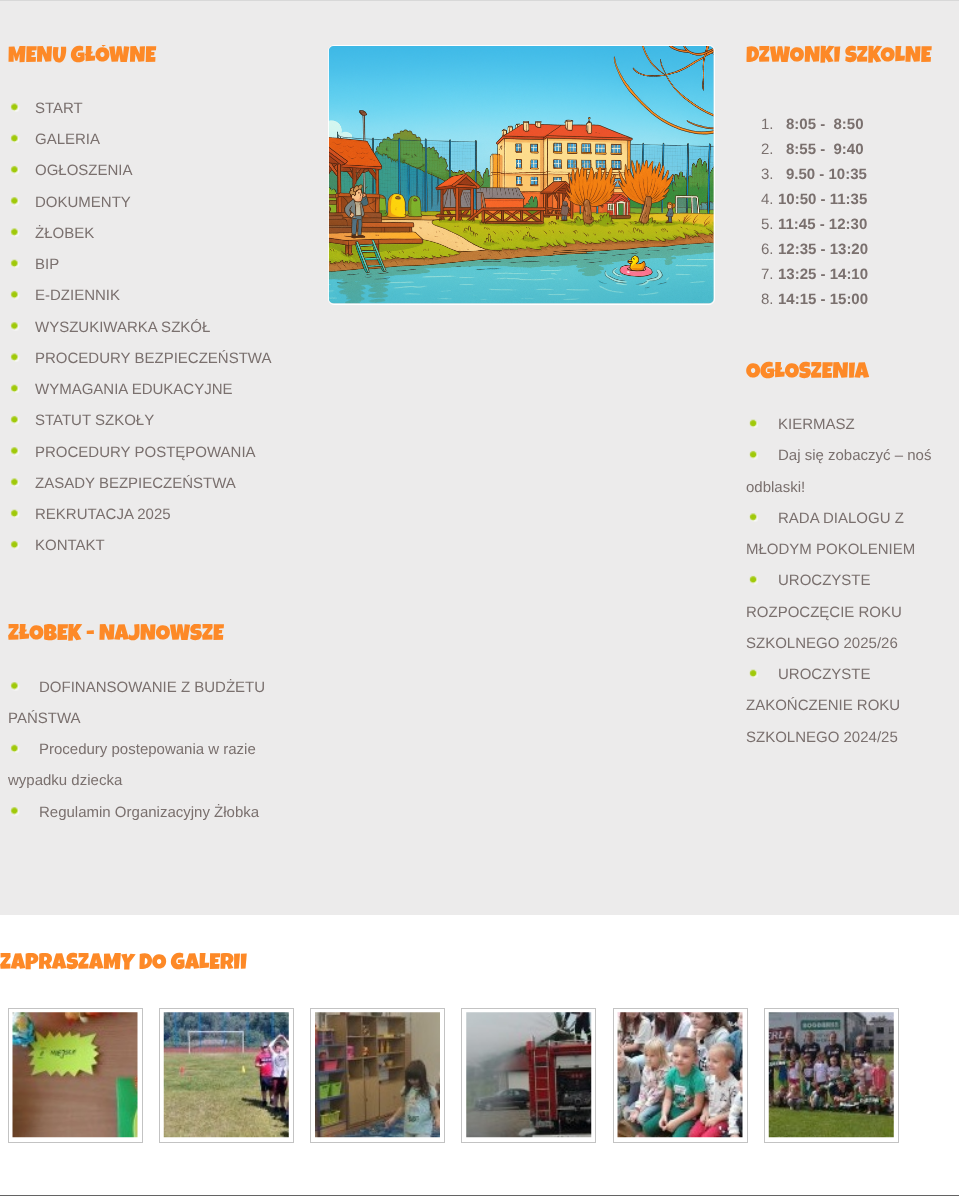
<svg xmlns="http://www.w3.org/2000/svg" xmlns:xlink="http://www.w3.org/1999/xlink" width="959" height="1196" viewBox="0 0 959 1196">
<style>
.cls-1{font:22.5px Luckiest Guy;fill:#fd8927}
.cls-2{font:15px Liberation Sans;fill:#7a706e}
.cls-3{font:bold 15px Liberation Sans;fill:#7a706e}
</style>
<defs>
<clipPath id="clip1"><rect x="8" y="45" width="286" height="541"/></clipPath>
<clipPath id="clip2"><rect x="8" y="624" width="286" height="216"/></clipPath>
</defs>
<rect width="100%" height="100%" fill="#ffffff"/>
<rect fill="#ecebeb" x="0" y="1" width="959" height="914"/>
<rect fill="#d8d8d8" x="0" y="0" width="959" height="1"/>
<image xlink:href="image0.png" x="10" y="103" width="10" height="9"/>
<image xlink:href="image1.png" x="10" y="134" width="10" height="9"/>
<image xlink:href="image2.png" x="10" y="165" width="10" height="10"/>
<image xlink:href="image3.png" x="10" y="197" width="10" height="9"/>
<image xlink:href="image0.png" x="10" y="228" width="10" height="9"/>
<image xlink:href="image1.png" x="10" y="259" width="10" height="9"/>
<image xlink:href="image2.png" x="10" y="290" width="10" height="10"/>
<image xlink:href="image3.png" x="10" y="322" width="10" height="9"/>
<image xlink:href="image0.png" x="10" y="353" width="10" height="9"/>
<image xlink:href="image1.png" x="10" y="384" width="10" height="9"/>
<image xlink:href="image2.png" x="10" y="415" width="10" height="10"/>
<image xlink:href="image3.png" x="10" y="447" width="10" height="9"/>
<image xlink:href="image0.png" x="10" y="478" width="10" height="9"/>
<image xlink:href="image1.png" x="10" y="509" width="10" height="9"/>
<image xlink:href="image2.png" x="10" y="540" width="10" height="10"/>
<image xlink:href="image3.png" x="10" y="682" width="10" height="9"/>
<image xlink:href="image4.png" x="10" y="744" width="10" height="9"/>
<image xlink:href="image3.png" x="10" y="807" width="10" height="9"/>
<rect fill="none" stroke="#ffffff" x="328.5" y="45.5" width="386" height="259" rx="5.5"/>
<image xlink:href="image5.png" x="328" y="46" width="386" height="258"/>
<image xlink:href="image6.png" x="749" y="419" width="9" height="9"/>
<image xlink:href="image7.png" x="749" y="450" width="9" height="10"/>
<image xlink:href="image8.png" x="749" y="513" width="9" height="9"/>
<image xlink:href="image7.png" x="749" y="575" width="9" height="10"/>
<image xlink:href="image6.png" x="749" y="669" width="9" height="9"/>
<rect fill="none" stroke="#c3c3c3" x="8.5" y="1008.5" width="134" height="134"/>
<image xlink:href="image9.png" x="12" y="1012" width="126" height="126"/>
<rect fill="none" stroke="#c3c3c3" x="159.5" y="1008.5" width="134" height="134"/>
<image xlink:href="image10.png" x="163" y="1012" width="126" height="126"/>
<rect fill="none" stroke="#c3c3c3" x="310.5" y="1008.5" width="134" height="134"/>
<image xlink:href="image11.png" x="315" y="1012" width="125" height="126"/>
<rect fill="none" stroke="#c3c3c3" x="461.5" y="1008.5" width="134" height="134"/>
<image xlink:href="image12.png" x="466" y="1012" width="126" height="126"/>
<rect fill="none" stroke="#c3c3c3" x="613.5" y="1008.5" width="134" height="134"/>
<image xlink:href="image13.png" x="617" y="1012" width="126" height="126"/>
<rect fill="none" stroke="#c3c3c3" x="764.5" y="1008.5" width="134" height="134"/>
<image xlink:href="image14.png" x="768" y="1012" width="126" height="126"/>
<rect fill="#636363" x="0" y="1195" width="959" height="1"/>
<g clip-path="url(#clip1)">
<text class="cls-1" x="8" y="62">MENU GŁÓWNE</text>
</g>
<text class="cls-2" x="35" y="113">START</text>
<text class="cls-2" x="35" y="144">GALERIA</text>
<text class="cls-2" x="35" y="175">OGŁOSZENIA</text>
<text class="cls-2" x="35" y="207">DOKUMENTY</text>
<text class="cls-2" x="35" y="238">ŻŁOBEK</text>
<text class="cls-2" x="35" y="269">BIP</text>
<text class="cls-2" x="35" y="300">E-DZIENNIK</text>
<text class="cls-2" x="35" y="332">WYSZUKIWARKA SZKÓŁ</text>
<text class="cls-2" x="35" y="363">PROCEDURY BEZPIECZEŃSTWA</text>
<text class="cls-2" x="35" y="394">WYMAGANIA EDUKACYJNE</text>
<text class="cls-2" x="35" y="425">STATUT SZKOŁY</text>
<text class="cls-2" x="35" y="457">PROCEDURY POSTĘPOWANIA</text>
<text class="cls-2" x="35" y="488">ZASADY BEZPIECZEŃSTWA</text>
<text class="cls-2" x="35" y="519">REKRUTACJA 2025</text>
<text class="cls-2" x="35" y="550">KONTAKT</text>
<g clip-path="url(#clip2)">
<text class="cls-1" x="8" y="640">ŻŁOBEK - NAJNOWSZE</text>
</g>
<text class="cls-2" x="39" y="692">DOFINANSOWANIE Z BUDŻETU</text>
<text class="cls-2" x="8" y="723">PAŃSTWA</text>
<text class="cls-2" x="39" y="754">Procedury postepowania w razie</text>
<text class="cls-2" x="8" y="785">wypadku dziecka</text>
<text class="cls-2" x="39" y="817">Regulamin Organizacyjny Żłobka</text>
<text class="cls-1" x="746" y="62">DZWONKI SZKOLNE</text>
<text class="cls-2" x="761" y="129">1.</text>
<text class="cls-3" xml:space="preserve" x="786" y="129">8:05 -  8:50</text>
<text class="cls-2" x="761" y="154">2.</text>
<text class="cls-3" xml:space="preserve" x="786" y="154">8:55 -  9:40</text>
<text class="cls-2" x="761" y="179">3.</text>
<text class="cls-3" x="786" y="179">9.50 - 10:35</text>
<text class="cls-2" x="761" y="204">4.</text>
<text class="cls-3" x="778" y="204">10:50 - 11:35</text>
<text class="cls-2" x="761" y="229">5.</text>
<text class="cls-3" x="778" y="229">11:45 - 12:30</text>
<text class="cls-2" x="761" y="254">6.</text>
<text class="cls-3" x="778" y="254">12:35 - 13:20</text>
<text class="cls-2" x="761" y="279">7.</text>
<text class="cls-3" x="778" y="279">13:25 - 14:10</text>
<text class="cls-2" x="761" y="304">8.</text>
<text class="cls-3" x="778" y="304">14:15 - 15:00</text>
<text class="cls-1" x="746" y="378">OGŁOSZENIA</text>
<text class="cls-2" x="778" y="429">KIERMASZ</text>
<text class="cls-2" x="778" y="460">Daj się zobaczyć – noś</text>
<text class="cls-2" x="746" y="492">odblaski!</text>
<text class="cls-2" x="778" y="523">RADA DIALOGU Z</text>
<text class="cls-2" x="746" y="554">MŁODYM POKOLENIEM</text>
<text class="cls-2" x="778" y="585">UROCZYSTE</text>
<text class="cls-2" x="746" y="617">ROZPOCZĘCIE ROKU</text>
<text class="cls-2" x="746" y="648">SZKOLNEGO 2025/26</text>
<text class="cls-2" x="778" y="679">UROCZYSTE</text>
<text class="cls-2" x="746" y="710">ZAKOŃCZENIE ROKU</text>
<text class="cls-2" x="746" y="742">SZKOLNEGO 2024/25</text>
<text class="cls-1" x="0" y="969">ZAPRASZAMY DO GALERII</text>
</svg>
